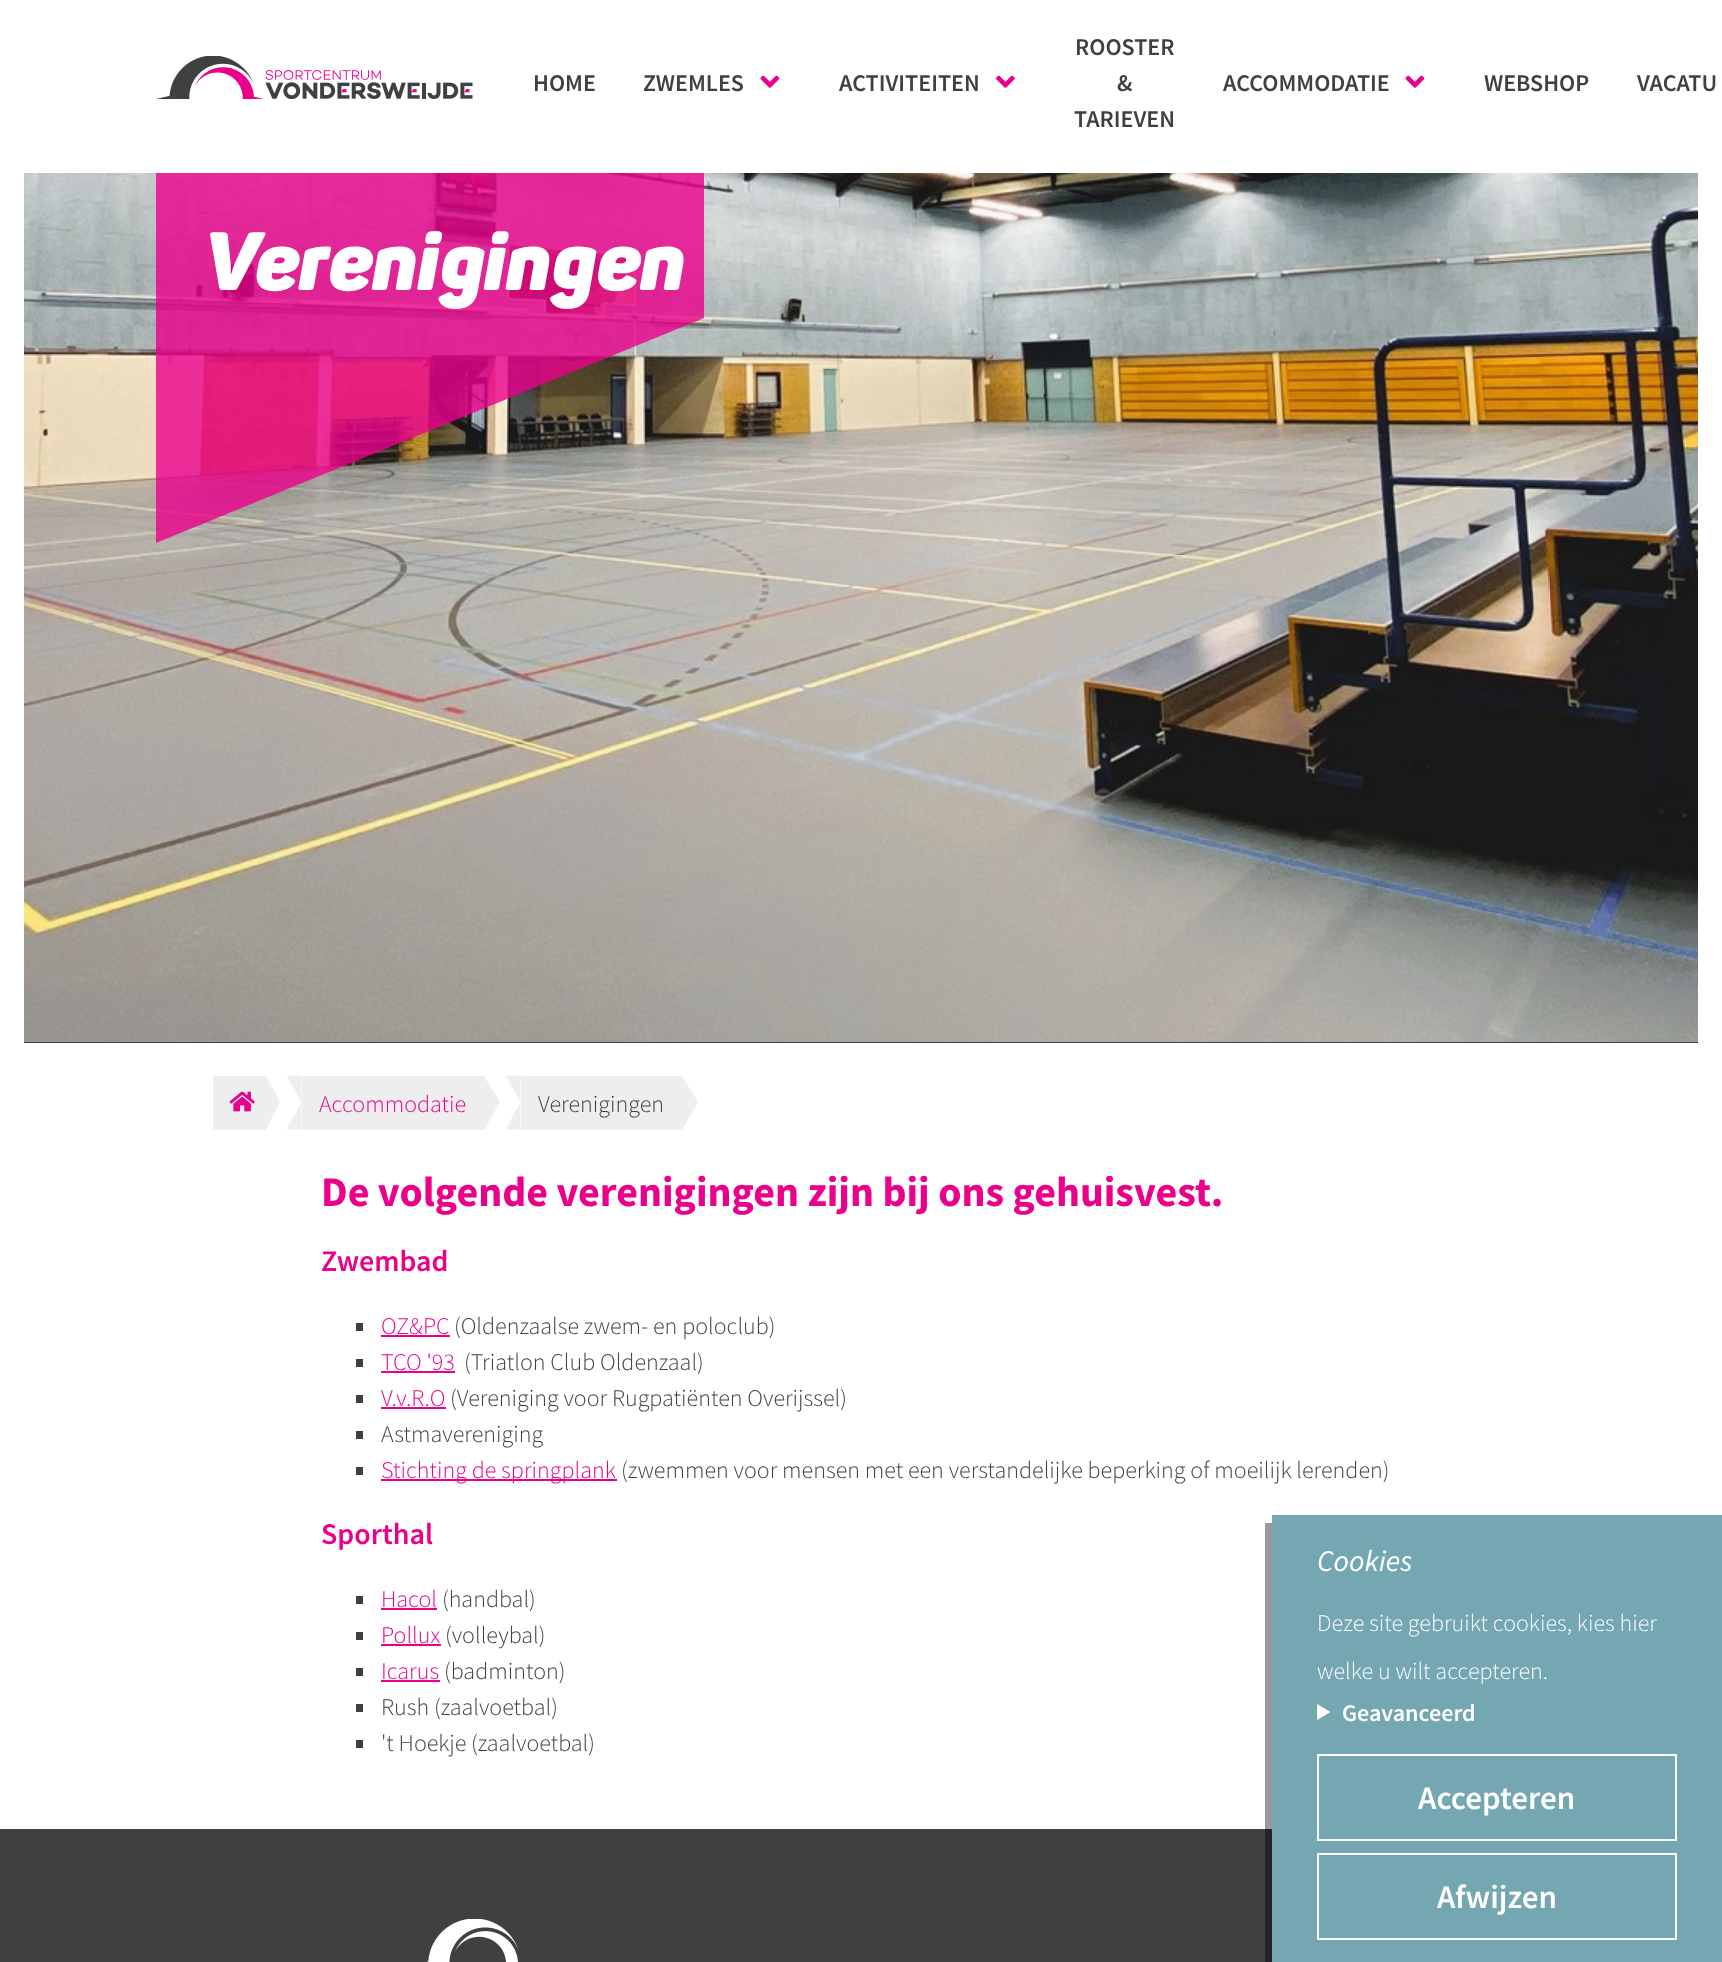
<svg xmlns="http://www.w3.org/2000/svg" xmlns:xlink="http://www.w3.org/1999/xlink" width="1722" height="1962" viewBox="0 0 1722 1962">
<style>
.cls-1{font:600 24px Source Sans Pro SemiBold;fill:#404041}
.cls-2{font:italic 900 81.5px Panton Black;fill:#ffffff}
.cls-3{font:300 24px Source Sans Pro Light;fill:#eb008b}
.cls-4{font:300 24px Source Sans Pro Light;fill:#404041}
.cls-5{font:bold 42px Source Sans Pro;fill:#eb008b}
.cls-6{font:600 30px Source Sans Pro SemiBold;fill:#eb008b}
.cls-7{font:italic 30px Source Sans Pro;fill:#ffffff}
.cls-8{font:300 24px Source Sans Pro Light;fill:#ffffff}
.cls-9{font:600 24px Source Sans Pro SemiBold;fill:#ffffff}
.cls-10{font:600 33px Source Sans Pro SemiBold;fill:#ffffff}
</style>
<rect width="100%" height="100%" fill="#ffffff"/>
<image xlink:href="image0.png" x="156" y="56" width="317" height="43"/>
<image xlink:href="image1.png" x="760" y="75" width="20" height="13"/>
<image xlink:href="image2.png" x="996" y="75" width="19" height="13"/>
<image xlink:href="image1.png" x="1405" y="75" width="20" height="13"/>
<rect fill="#404041" x="24" y="1042" width="1674" height="1"/>
<image xlink:href="image3.png" x="24" y="173" width="1674" height="869"/>
<rect fill="#eb008d" fill-opacity="0.8" x="156" y="173" width="548" height="145"/>
<path fill="#eb008d" fill-opacity="0.8" d="M156 318H704L156 543Z"/>
<rect fill="#eeeeee" x="213" y="1076" width="53" height="54"/>
<image xlink:href="image4.png" x="229" y="1091" width="26" height="21"/>
<path fill="#eeeeee" d="M266 1130V1076L280 1102Z"/>
<rect fill="#eeeeee" x="302" y="1076" width="183" height="54"/>
<path fill="#eeeeee" d="M286.5 1075.5H301.5V1102.5Z"/>
<path fill="#eeeeee" d="M301.5 1129.5H286.5L301.5 1102.5Z"/>
<path fill="#eeeeee" d="M484 1130V1076L500 1102Z"/>
<rect fill="#eeeeee" x="521" y="1076" width="162" height="54"/>
<path fill="#eeeeee" d="M505.5 1075.5H520.5V1102.5Z"/>
<path fill="#eeeeee" d="M520.5 1129.5H505.5L520.5 1102.5Z"/>
<path fill="#eeeeee" d="M682 1130V1076L698 1102Z"/>
<rect fill="#404041" x="356" y="1323" width="7" height="8"/>
<rect fill="#eb008b" x="381" y="1335" width="69" height="2"/>
<rect fill="#404041" x="356" y="1359" width="7" height="8"/>
<rect fill="#eb008b" x="381" y="1371" width="74" height="2"/>
<rect fill="#404041" x="356" y="1395" width="7" height="8"/>
<rect fill="#eb008b" x="381" y="1407" width="65" height="2"/>
<rect fill="#404041" x="356" y="1431" width="7" height="8"/>
<rect fill="#404041" x="356" y="1467" width="7" height="8"/>
<rect fill="#eb008b" x="381" y="1479" width="236" height="2"/>
<rect fill="#404041" x="356" y="1596" width="7" height="8"/>
<rect fill="#eb008b" x="381" y="1608" width="56" height="2"/>
<rect fill="#404041" x="356" y="1632" width="7" height="8"/>
<rect fill="#eb008b" x="381" y="1644" width="60" height="2"/>
<rect fill="#404041" x="356" y="1668" width="7" height="8"/>
<rect fill="#eb008b" x="381" y="1680" width="59" height="2"/>
<rect fill="#404041" x="356" y="1704" width="7" height="8"/>
<rect fill="#404041" x="356" y="1740" width="7" height="8"/>
<rect fill="#404041" x="0" y="1829" width="1272" height="133"/>
<path fill="#000000" fill-opacity="0.4" d="M1265 1523V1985H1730V1523H1722V1962H1272V1523Z"/>
<rect fill="#74a7b2" x="1272" y="1515" width="450" height="447"/>
<path fill="#ffffff" d="M1317 1704L1330.5 1712L1317 1720Z"/>
<rect fill="none" stroke="#ffffff" stroke-width="2" x="1318" y="1755" width="358" height="85"/>
<rect fill="none" stroke="#ffffff" stroke-width="2" x="1318" y="1854" width="358" height="85"/>
<image xlink:href="image5.png" x="426" y="1919" width="93" height="43"/>
<text class="cls-1" x="533" y="91">HOME</text>
<text class="cls-1" x="643" y="91">ZWEMLES</text>
<text class="cls-1" x="839" y="91">ACTIVITEITEN</text>
<text class="cls-1" x="1075" y="55">ROOSTER</text>
<text class="cls-1" x="1117" y="91">&amp;</text>
<text class="cls-1" x="1074" y="127">TARIEVEN</text>
<text class="cls-1" x="1223" y="91">ACCOMMODATIE</text>
<text class="cls-1" x="1484" y="91">WEBSHOP</text>
<text class="cls-1" x="1637" y="91">VACATU</text>
<text class="cls-2" x="204" y="290">Verenigingen</text>
<text class="cls-3" x="319" y="1112">Accommodatie</text>
<text class="cls-4" x="538" y="1112">Verenigingen</text>
<text class="cls-5" x="321" y="1206">De volgende verenigingen zijn bij ons gehuisvest.</text>
<text class="cls-6" x="321" y="1271">Zwembad</text>
<text class="cls-3" x="381" y="1334">OZ&amp;PC</text>
<text class="cls-4" x="454" y="1334">(Oldenzaalse zwem- en poloclub)</text>
<text class="cls-3" x="381" y="1370">TCO '93</text>
<text class="cls-4" x="464" y="1370">(Triatlon Club Oldenzaal)</text>
<text class="cls-3" x="381" y="1406">V.v.R.O</text>
<text class="cls-4" x="450" y="1406">(Vereniging voor Rugpatiënten Overijssel)</text>
<text class="cls-4" x="381" y="1442">Astmavereniging</text>
<text class="cls-3" x="381" y="1478">Stichting de springplank</text>
<text class="cls-4" x="621" y="1478">(zwemmen voor mensen met een verstandelijke beperking of moeilijk lerenden)</text>
<text class="cls-6" x="321" y="1544">Sporthal</text>
<text class="cls-3" x="381" y="1607">Hacol</text>
<text class="cls-4" x="442" y="1607">(handbal)</text>
<text class="cls-3" x="381" y="1643">Pollux</text>
<text class="cls-4" x="445" y="1643">(volleybal)</text>
<text class="cls-3" x="381" y="1679">Icarus</text>
<text class="cls-4" x="444" y="1679">(badminton)</text>
<text class="cls-4"><tspan x="381" y="1715">Rush (zaalvoetbal)</tspan><tspan x="381" y="1751">'t Hoekje (zaalvoetbal)</tspan></text>
<text class="cls-7" x="1317" y="1571">Cookies</text>
<text class="cls-8" x="1317" y="1631">Deze site gebruikt cookies, kies hier</text>
<text class="cls-8" x="1317" y="1679">welke u wilt accepteren.</text>
<text class="cls-9" x="1342" y="1721">Geavanceerd</text>
<text class="cls-10" x="1418" y="1809">Accepteren</text>
<text class="cls-10" x="1437" y="1908">Afwijzen</text>
</svg>
